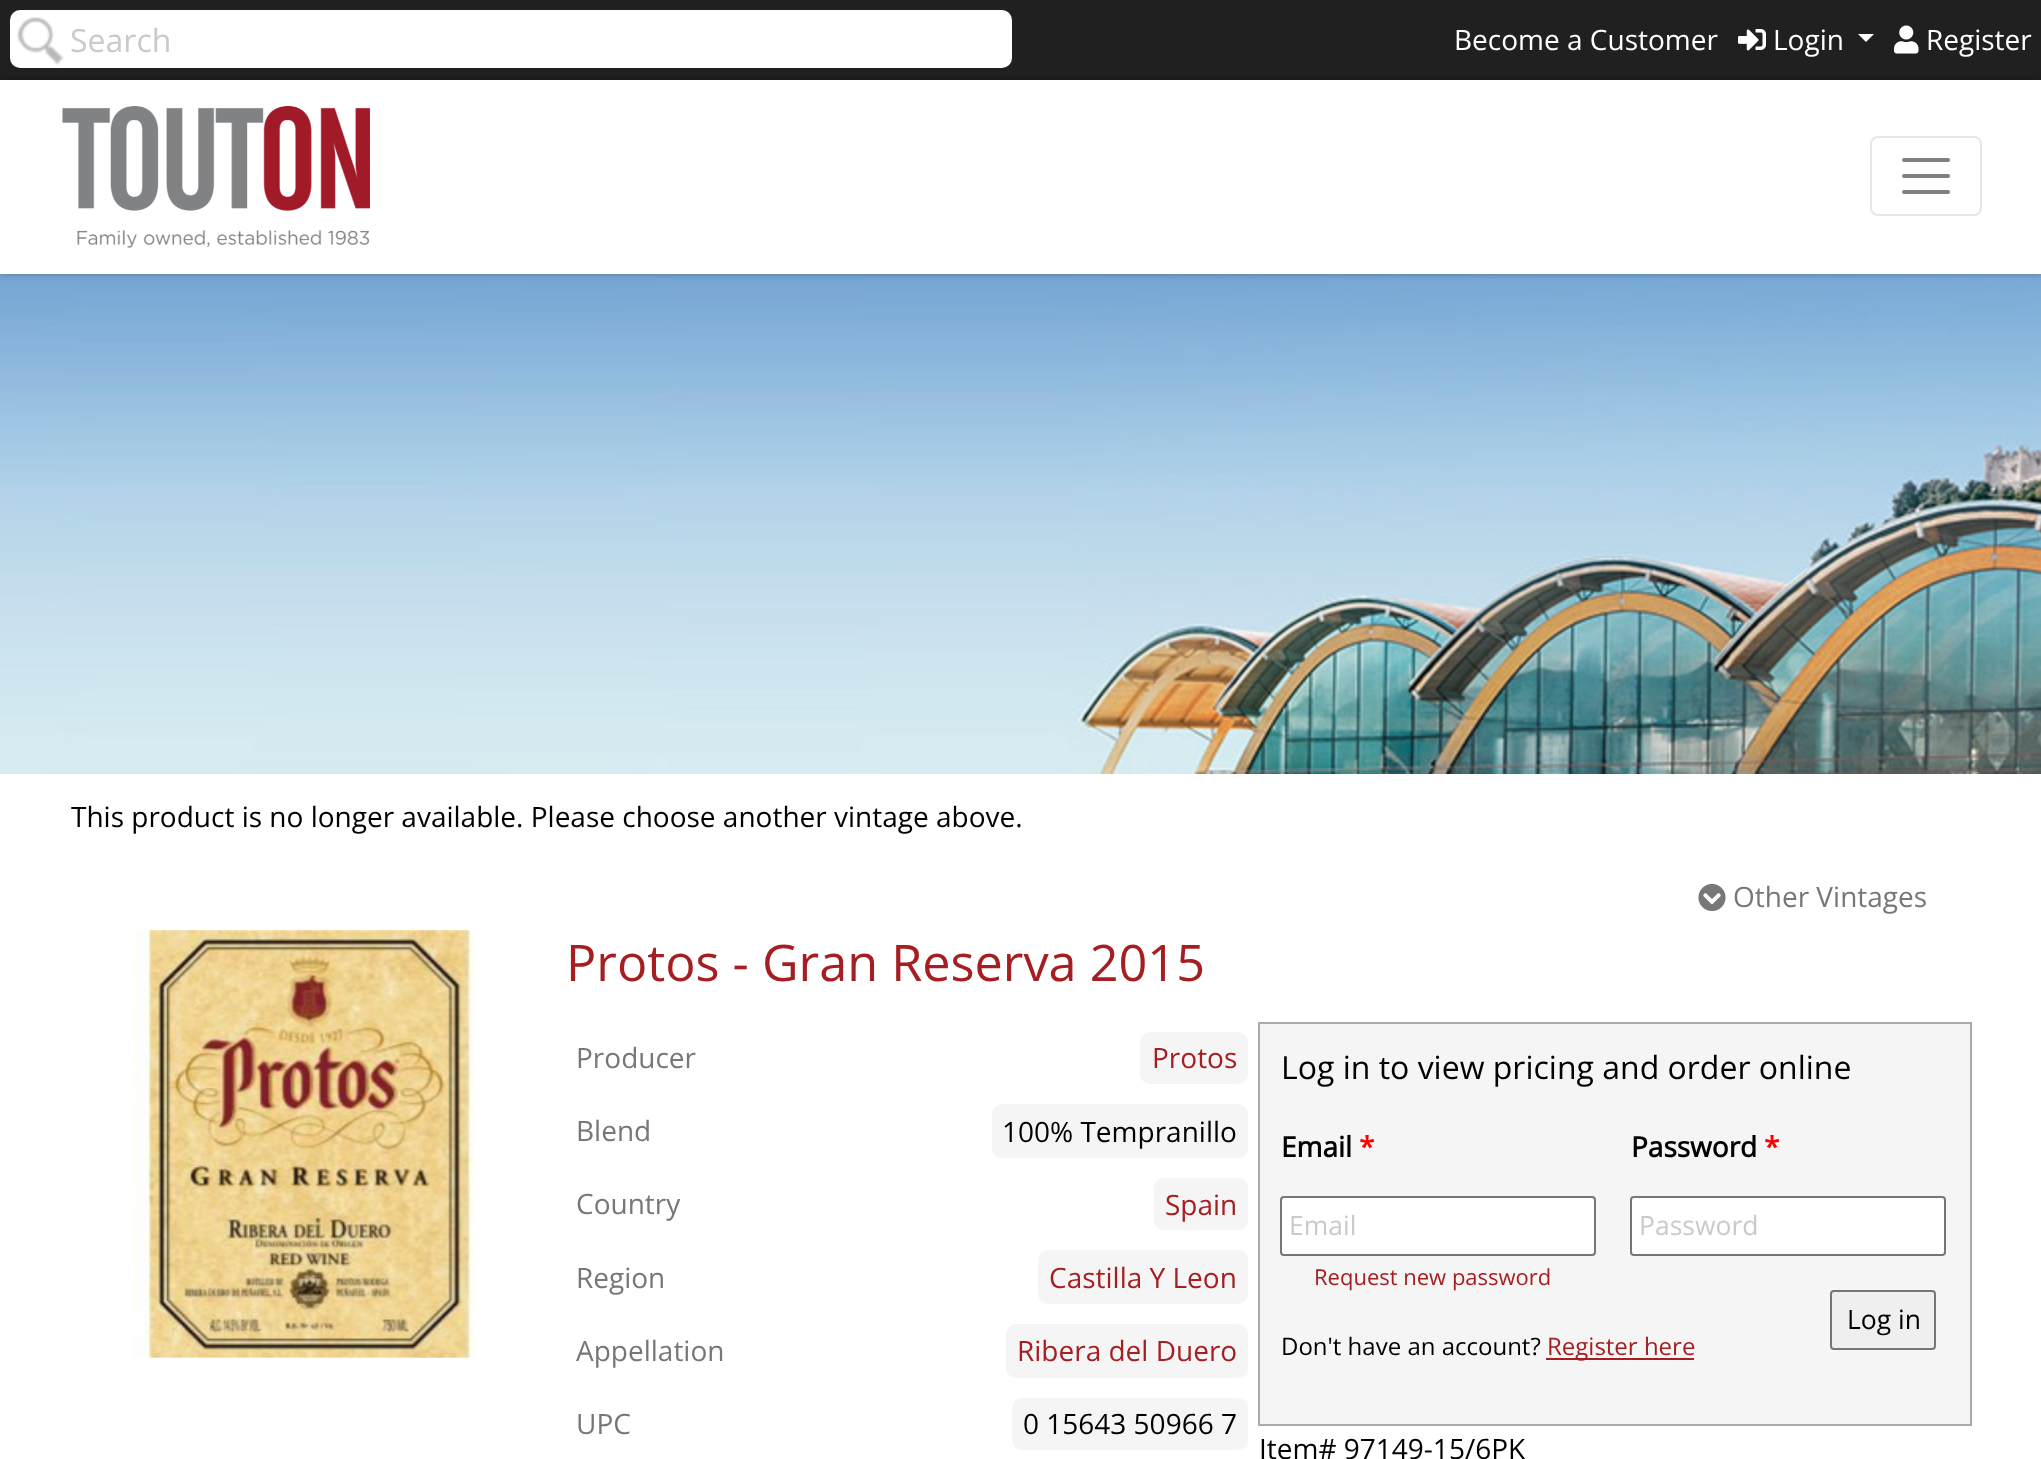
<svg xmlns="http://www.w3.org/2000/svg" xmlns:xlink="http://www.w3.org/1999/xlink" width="2041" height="1459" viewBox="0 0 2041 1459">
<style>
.cls-1{font:32px Open Sans;fill:#cacaca}
.cls-2{font:28px Open Sans;fill:#ffffff}
.cls-3{font:28px Open Sans;fill:#000000}
.cls-4{font:28px Open Sans;fill:#777777}
.cls-5{font:50.4px Open Sans;fill:#a51e21}
.cls-6{font:28px Open Sans;fill:#a51e21}
.cls-7{font:32px Open Sans;fill:#000000}
.cls-8{font:bold 28px Open Sans;fill:#000000}
.cls-9{font:bold 28px Open Sans;fill:#ff0000}
.cls-10{font:26.5px Open Sans;fill:#cacaca}
.cls-11{font:22px Open Sans;fill:#a51e21}
.cls-12{font:26.5px Open Sans;fill:#000000}
.cls-13{font:24px Open Sans;fill:#000000}
.cls-14{font:24px Open Sans;fill:#a51e21}
</style>
<defs>
<clipPath id="clip1"><path d="M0 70H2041V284H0ZM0 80H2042V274H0Z" clip-rule="evenodd"/></clipPath>
</defs>
<rect width="100%" height="100%" fill="#ffffff"/>
<rect fill="#202020" x="0" y="0" width="2041" height="80"/>
<rect fill="#ffffff" x="10" y="10" width="1002" height="58" rx="10"/>
<image xlink:href="image0.png" x="17" y="17" width="47" height="48"/>
<image xlink:href="image1.png" x="1738" y="29" width="28" height="22"/>
<path fill="#ffffff" d="M1858 34H1874L1866 42Z"/>
<image xlink:href="image2.png" x="1894" y="25" width="25" height="29"/>
<image xlink:href="image4.png" x="0" y="274" width="2041" height="500"/>
<g clip-path="url(#clip1)">
<rect fill="#000000" fill-opacity="0.3" filter="blur(3px)" x="0" y="80" width="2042" height="194"/>
</g>
<image xlink:href="image3.png" x="62" y="106" width="308" height="142"/>
<rect fill="none" stroke="#e6e6e6" stroke-width="2" x="1871" y="137" width="110" height="78" rx="7"/>
<path fill="none" stroke="#808080" stroke-width="4" stroke-linecap="round" d="M1904 160H1948M1904 176H1948M1904 192H1948"/>
<image xlink:href="image5.png" x="1698" y="884" width="28" height="27"/>
<image xlink:href="image6.png" x="131" y="930" width="344" height="428"/>
<rect fill="#f5f5f5" x="1140" y="1032" width="108" height="52" rx="10"/>
<rect fill="#f5f5f5" x="992" y="1104" width="256" height="54" rx="10"/>
<rect fill="#f5f5f5" x="1154" y="1178" width="94" height="52" rx="10"/>
<rect fill="#f5f5f5" x="1038" y="1250" width="210" height="54" rx="10"/>
<rect fill="#f5f5f5" x="1006" y="1324" width="242" height="54" rx="10"/>
<rect fill="#f5f5f5" x="1012" y="1398" width="236" height="52" rx="10"/>
<rect fill="#f5f5f5" stroke="#aaaaaa" stroke-width="2" x="1259" y="1023" width="712" height="402"/>
<rect fill="#ffffff" stroke="#767676" stroke-width="2" x="1281" y="1197" width="314" height="58" rx="3"/>
<rect fill="#ffffff" stroke="#767676" stroke-width="2" x="1631" y="1197" width="314" height="58" rx="3"/>
<rect fill="#efefef" stroke="#767676" stroke-width="2" x="1831" y="1291" width="104" height="58" rx="3"/>
<rect fill="#a51e21" x="1546" y="1358" width="148" height="2"/>
<text class="cls-1" x="70" y="52">Search</text>
<text class="cls-2" x="1454" y="50">Become a Customer</text>
<text class="cls-2" x="1773" y="50">Login</text>
<text class="cls-2" x="1926" y="50">Register</text>
<text class="cls-3" x="71" y="827">This product is no longer available. Please choose another vintage above.</text>
<text class="cls-4" x="1733" y="907">Other Vintages</text>
<text class="cls-5" x="566" y="981">Protos - Gran Reserva 2015</text>
<text class="cls-4" x="576" y="1068">Producer</text>
<text class="cls-6" x="1152" y="1068">Protos</text>
<text class="cls-4" x="576" y="1141">Blend</text>
<text class="cls-3" x="1002" y="1142">100% Tempranillo</text>
<text class="cls-4" x="576" y="1214">Country</text>
<text class="cls-6" x="1165" y="1215">Spain</text>
<text class="cls-4" x="576" y="1288">Region</text>
<text class="cls-6" x="1049" y="1288">Castilla Y Leon</text>
<text class="cls-4" x="576" y="1361">Appellation</text>
<text class="cls-6" x="1017" y="1361">Ribera del Duero</text>
<text class="cls-4" x="576" y="1434">UPC</text>
<text class="cls-3" x="1023" y="1434">0 15643 50966 7</text>
<text class="cls-7" x="1281" y="1079">Log in to view pricing and order online</text>
<text class="cls-8" x="1281" y="1157">Email</text>
<text class="cls-9" x="1359" y="1157">*</text>
<text class="cls-10" x="1289" y="1235">Email</text>
<text class="cls-8" x="1631" y="1157">Password</text>
<text class="cls-9" x="1764" y="1157">*</text>
<text class="cls-10" x="1639" y="1235">Password</text>
<text class="cls-11" x="1314" y="1285">Request new password</text>
<text class="cls-12" x="1847" y="1329">Log in</text>
<text class="cls-13" x="1281" y="1355">Don't have an account?</text>
<text class="cls-14" x="1547" y="1355">Register here</text>
<text class="cls-3" x="1259" y="1459">Item# 97149-15/6PK</text>
</svg>
